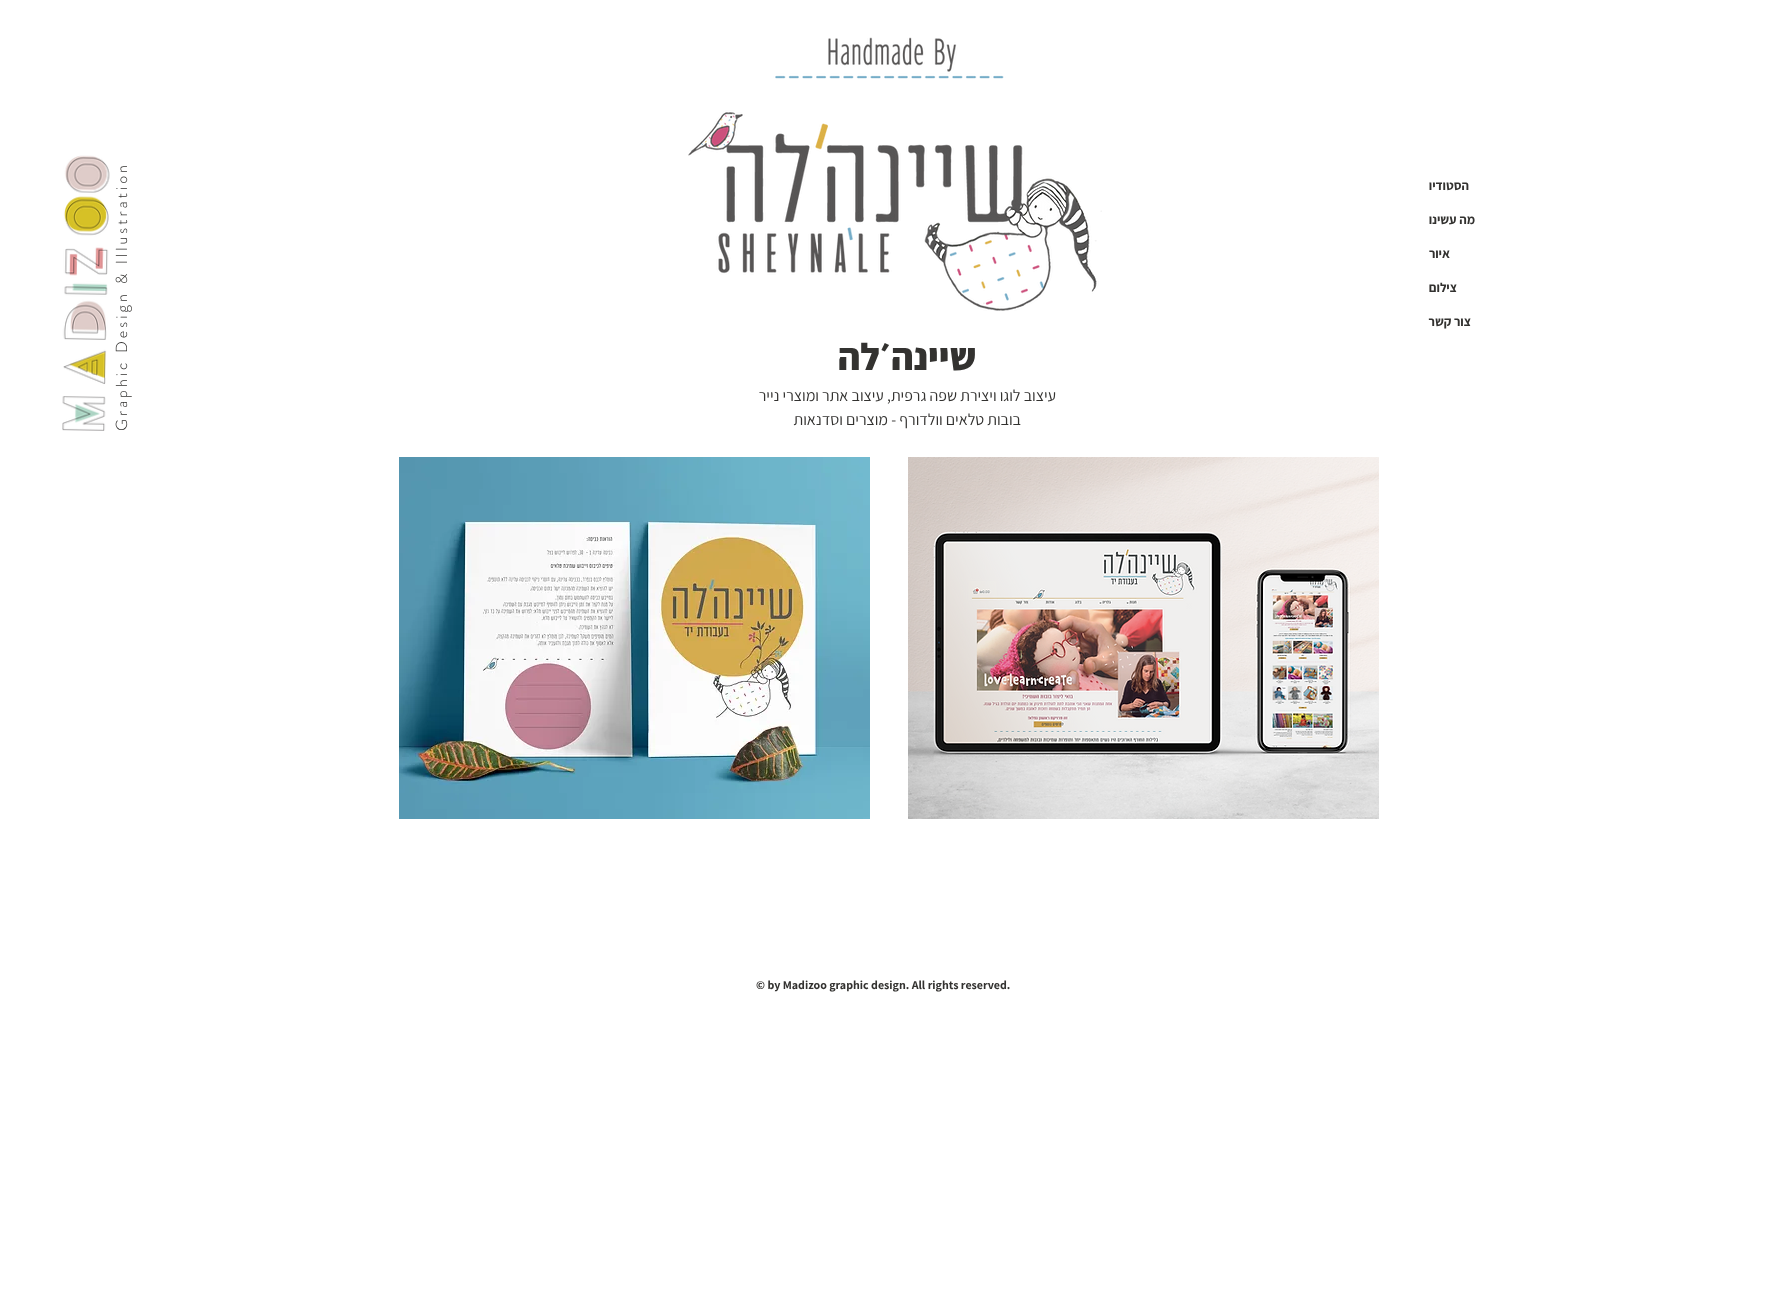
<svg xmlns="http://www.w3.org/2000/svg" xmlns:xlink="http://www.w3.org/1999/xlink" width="1777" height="1304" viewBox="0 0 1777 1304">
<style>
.cls-1{font:bold 13px Assistant;direction:rtl;fill:#333230}
.cls-2{font:300 16px 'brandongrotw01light';letter-spacing:3.05px;fill:#333230}
.cls-3{font:800 38px Assistant;direction:rtl;fill:#333230}
.cls-4{font:16px Assistant;direction:rtl;fill:#333230}
.cls-5{font:bold 12px Assistant;fill:#333230}
</style>
<rect width="100%" height="100%" fill="#ffffff"/>
<image xlink:href="image0.png" x="62" y="155" width="48" height="276"/>
<image xlink:href="image1.png" x="688" y="37" width="414" height="274"/>
<image xlink:href="image2.png" x="908" y="457" width="471" height="362"/>
<image xlink:href="image3.png" x="399" y="457" width="471" height="362"/>
<text class="cls-1" x="1469" y="190">הסטודיו</text>
<text class="cls-1" x="1475" y="224">מה עשינו</text>
<text class="cls-1" x="1450" y="258">איור</text>
<text class="cls-1" x="1457" y="292">צילום</text>
<text class="cls-1" x="1471" y="326">צור קשר</text>
<text class="cls-2" x="127" y="431" transform="rotate(-90 127 431)">Graphic Design &amp; Illustration</text>
<text class="cls-3" x="976" y="370">שיינה׳לה</text>
<text class="cls-4" x="1056" y="401">עיצוב לוגו ויצירת שפה גרפית, עיצוב אתר ומוצרי נייר</text>
<text class="cls-4" x="1021" y="425">בובות טלאים וולדורף - מוצרים וסדנאות</text>
<text class="cls-5" x="756" y="989">© by Madizoo graphic design. All rights reserved.</text>
</svg>
